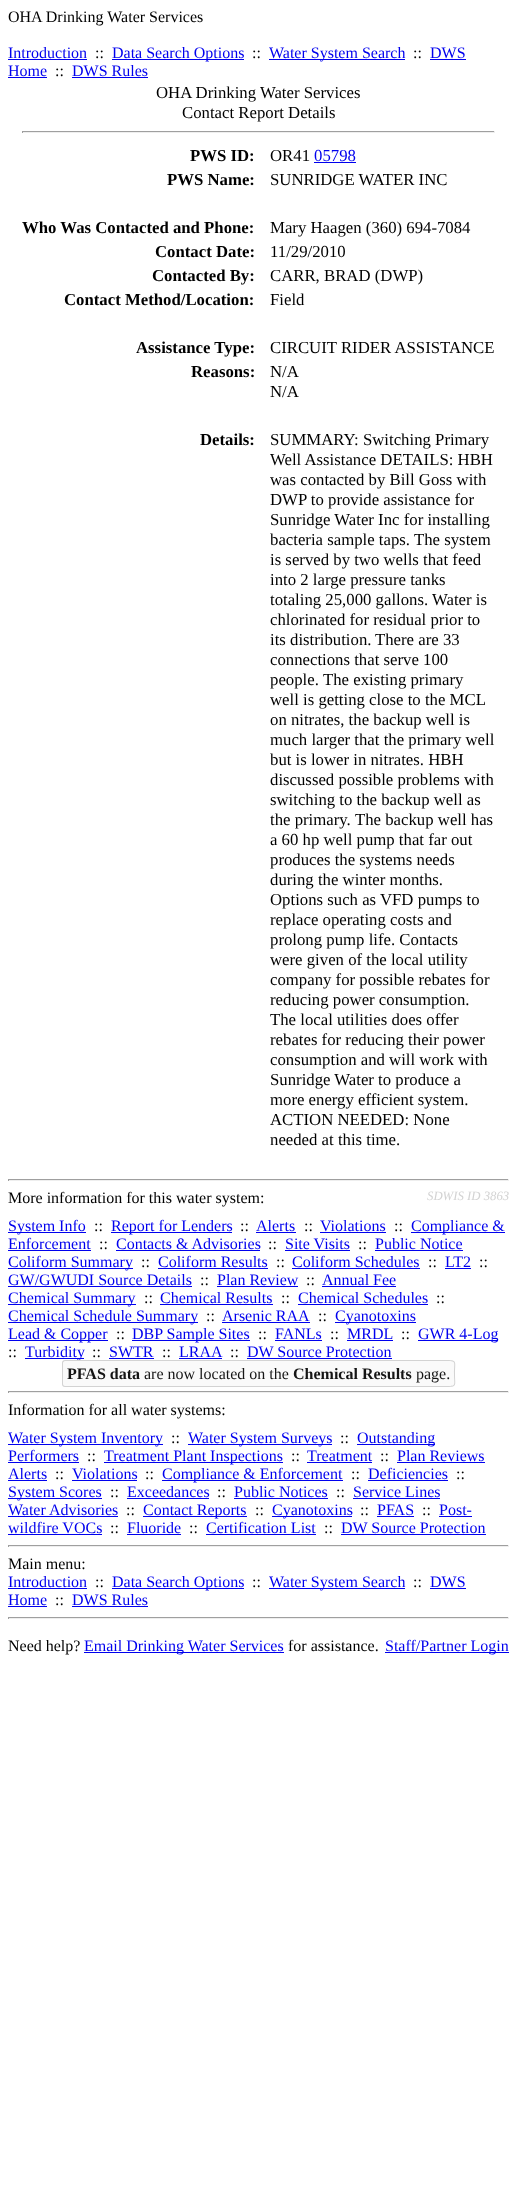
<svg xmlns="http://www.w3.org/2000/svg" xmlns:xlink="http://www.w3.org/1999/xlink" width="517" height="2203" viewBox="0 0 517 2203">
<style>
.cls-1{font:16px Liberation Serif;fill:#000000}
.cls-2{font:16px Liberation Serif;fill:#0000ee}
.cls-3{font:16.75px Liberation Serif;fill:#000000}
.cls-4{font:bold 16.75px Liberation Serif;fill:#000000}
.cls-5{font:16.75px Liberation Serif;fill:#0000ee}
.cls-6{font:italic 12.75px Liberation Serif;fill:#d3d3d3}
.cls-7{font:bold 16px Liberation Serif;fill:#151515}
.cls-8{font:16px Liberation Serif;fill:#151515}
</style>
<rect width="100%" height="100%" fill="#ffffff"/>
<rect fill="#0000ee" x="8" y="59" width="79" height="1"/>
<rect fill="#0000ee" x="112" y="59" width="132" height="1"/>
<rect fill="#0000ee" x="269" y="59" width="136" height="1"/>
<rect fill="#0000ee" x="430" y="59" width="36" height="1"/>
<rect fill="#0000ee" x="8" y="77" width="39" height="1"/>
<rect fill="#0000ee" x="72" y="77" width="76" height="1"/>
<rect fill="#9f9f9f" x="22" y="131" width="473" height="1"/>
<rect fill="#eeeeee" x="494" y="131" width="1" height="2"/>
<rect fill="#eeeeee" x="22" y="132" width="473" height="1"/>
<rect fill="#9f9f9f" x="22" y="131" width="1" height="2"/>
<rect fill="#0000ee" x="314" y="162" width="42" height="1"/>
<rect fill="#9f9f9f" x="8" y="1179" width="501" height="1"/>
<rect fill="#eeeeee" x="508" y="1179" width="1" height="2"/>
<rect fill="#eeeeee" x="8" y="1180" width="501" height="1"/>
<rect fill="#9f9f9f" x="8" y="1179" width="1" height="2"/>
<rect fill="#0000ee" x="8" y="1232" width="78" height="1"/>
<rect fill="#0000ee" x="111" y="1232" width="121" height="1"/>
<rect fill="#0000ee" x="256" y="1232" width="40" height="1"/>
<rect fill="#0000ee" x="320" y="1232" width="66" height="1"/>
<rect fill="#0000ee" x="411" y="1232" width="94" height="1"/>
<rect fill="#0000ee" x="8" y="1250" width="83" height="1"/>
<rect fill="#0000ee" x="116" y="1250" width="144" height="1"/>
<rect fill="#0000ee" x="285" y="1250" width="65" height="1"/>
<rect fill="#0000ee" x="375" y="1250" width="88" height="1"/>
<rect fill="#0000ee" x="8" y="1268" width="125" height="1"/>
<rect fill="#0000ee" x="158" y="1268" width="110" height="1"/>
<rect fill="#0000ee" x="292" y="1268" width="128" height="1"/>
<rect fill="#0000ee" x="445" y="1268" width="26" height="1"/>
<rect fill="#0000ee" x="8" y="1286" width="184" height="1"/>
<rect fill="#0000ee" x="217" y="1286" width="81" height="1"/>
<rect fill="#0000ee" x="322" y="1286" width="74" height="1"/>
<rect fill="#0000ee" x="8" y="1304" width="128" height="1"/>
<rect fill="#0000ee" x="160" y="1304" width="113" height="1"/>
<rect fill="#0000ee" x="298" y="1304" width="130" height="1"/>
<rect fill="#0000ee" x="8" y="1322" width="190" height="1"/>
<rect fill="#0000ee" x="222" y="1322" width="88" height="1"/>
<rect fill="#0000ee" x="335" y="1322" width="81" height="1"/>
<rect fill="#0000ee" x="8" y="1340" width="100" height="1"/>
<rect fill="#0000ee" x="132" y="1340" width="118" height="1"/>
<rect fill="#0000ee" x="275" y="1340" width="47" height="1"/>
<rect fill="#0000ee" x="347" y="1340" width="46" height="1"/>
<rect fill="#0000ee" x="418" y="1340" width="80" height="1"/>
<rect fill="#0000ee" x="25" y="1358" width="59" height="1"/>
<rect fill="#0000ee" x="109" y="1358" width="45" height="1"/>
<rect fill="#0000ee" x="179" y="1358" width="43" height="1"/>
<rect fill="#0000ee" x="247" y="1358" width="145" height="1"/>
<rect fill="#fafafa" x="140" y="1361" width="272" height="25"/>
<rect fill="#d3d3d3" x="140" y="1360" width="272" height="1"/>
<path fill="#fafafa" d="M412 1360H452C453.5 1360 455 1361.5 455 1363V1384C455 1385.5 453.5 1387 452 1387H412Z"/>
<path fill="#d3d3d3" fill-rule="evenodd" d="M412 1360H445C458 1360 455 1361 455 1374C455 1386 458 1387 445 1387H412ZM412 1361H445C457 1361 454 1361 454 1374C454 1386 457 1386 445 1386H412Z"/>
<rect fill="#d3d3d3" x="140" y="1386" width="272" height="1"/>
<rect fill="#9f9f9f" x="8" y="1391" width="501" height="1"/>
<rect fill="#eeeeee" x="508" y="1391" width="1" height="2"/>
<rect fill="#eeeeee" x="8" y="1392" width="501" height="1"/>
<rect fill="#9f9f9f" x="8" y="1391" width="1" height="2"/>
<rect fill="#0000ee" x="8" y="1444" width="155" height="1"/>
<rect fill="#0000ee" x="188" y="1444" width="144" height="1"/>
<rect fill="#0000ee" x="357" y="1444" width="78" height="1"/>
<rect fill="#0000ee" x="8" y="1462" width="71" height="1"/>
<rect fill="#0000ee" x="104" y="1462" width="179" height="1"/>
<rect fill="#0000ee" x="307" y="1462" width="65" height="1"/>
<rect fill="#0000ee" x="397" y="1462" width="88" height="1"/>
<rect fill="#0000ee" x="8" y="1480" width="39" height="1"/>
<rect fill="#0000ee" x="72" y="1480" width="65" height="1"/>
<rect fill="#0000ee" x="162" y="1480" width="181" height="1"/>
<rect fill="#0000ee" x="368" y="1480" width="80" height="1"/>
<rect fill="#0000ee" x="8" y="1498" width="94" height="1"/>
<rect fill="#0000ee" x="127" y="1498" width="82" height="1"/>
<rect fill="#0000ee" x="234" y="1498" width="94" height="1"/>
<rect fill="#0000ee" x="353" y="1498" width="87" height="1"/>
<rect fill="#0000ee" x="8" y="1516" width="110" height="1"/>
<rect fill="#0000ee" x="143" y="1516" width="104" height="1"/>
<rect fill="#0000ee" x="272" y="1516" width="80" height="1"/>
<rect fill="#0000ee" x="377" y="1516" width="37" height="1"/>
<rect fill="#0000ee" x="439" y="1516" width="33" height="1"/>
<rect fill="#0000ee" x="8" y="1534" width="94" height="1"/>
<rect fill="#0000ee" x="127" y="1534" width="54" height="1"/>
<rect fill="#0000ee" x="206" y="1534" width="110" height="1"/>
<rect fill="#0000ee" x="341" y="1534" width="145" height="1"/>
<rect fill="#9f9f9f" x="8" y="1545" width="501" height="1"/>
<rect fill="#eeeeee" x="508" y="1545" width="1" height="2"/>
<rect fill="#eeeeee" x="8" y="1546" width="501" height="1"/>
<rect fill="#9f9f9f" x="8" y="1545" width="1" height="2"/>
<rect fill="#0000ee" x="8" y="1588" width="79" height="1"/>
<rect fill="#0000ee" x="112" y="1588" width="132" height="1"/>
<rect fill="#0000ee" x="269" y="1588" width="136" height="1"/>
<rect fill="#0000ee" x="430" y="1588" width="36" height="1"/>
<rect fill="#0000ee" x="8" y="1606" width="39" height="1"/>
<rect fill="#0000ee" x="72" y="1606" width="76" height="1"/>
<rect fill="#9f9f9f" x="8" y="1617" width="501" height="1"/>
<rect fill="#eeeeee" x="508" y="1617" width="1" height="2"/>
<rect fill="#eeeeee" x="8" y="1618" width="501" height="1"/>
<rect fill="#9f9f9f" x="8" y="1617" width="1" height="2"/>
<rect fill="#0000ee" x="84" y="1652" width="200" height="1"/>
<rect fill="#0000ee" x="385" y="1652" width="124" height="1"/>
<text class="cls-1" x="8" y="22">OHA Drinking Water Services</text>
<text class="cls-2" x="8" y="58">Introduction</text>
<text class="cls-1" x="95" y="58">::</text>
<text class="cls-2" x="112" y="58">Data Search Options</text>
<text class="cls-1" x="252" y="58">::</text>
<text class="cls-2" x="269" y="58">Water System Search</text>
<text class="cls-1" x="413" y="58">::</text>
<text class="cls-2" x="430" y="58">DWS</text>
<text class="cls-2" x="8" y="76">Home</text>
<text class="cls-1" x="55" y="76">::</text>
<text class="cls-2" x="72" y="76">DWS Rules</text>
<text class="cls-3" x="156" y="98">OHA Drinking Water Services</text>
<text class="cls-3" x="182" y="118">Contact Report Details</text>
<text class="cls-4" x="190" y="161">PWS ID:</text>
<text class="cls-3" x="270" y="161">OR41</text>
<text class="cls-5" x="314" y="161">05798</text>
<text class="cls-4" x="167" y="185">PWS Name:</text>
<text class="cls-3" x="270" y="185">SUNRIDGE WATER INC</text>
<text class="cls-4" x="22" y="233">Who Was Contacted and Phone:</text>
<text class="cls-3" x="270" y="233">Mary Haagen (360) 694-7084</text>
<text class="cls-4" x="155" y="257">Contact Date:</text>
<text class="cls-3" x="270" y="257">11/29/2010</text>
<text class="cls-4" x="152" y="281">Contacted By:</text>
<text class="cls-3" x="270" y="281">CARR, BRAD (DWP)</text>
<text class="cls-4" x="64" y="305">Contact Method/Location:</text>
<text class="cls-3" x="270" y="305">Field</text>
<text class="cls-4" x="136" y="353">Assistance Type:</text>
<text class="cls-3" x="270" y="353">CIRCUIT RIDER ASSISTANCE</text>
<text class="cls-4" x="191" y="377">Reasons:</text>
<text class="cls-3"><tspan x="270" y="377">N/A</tspan><tspan x="270" y="397">N/A</tspan></text>
<text class="cls-4" x="200" y="445">Details:</text>
<text class="cls-3"><tspan x="270" y="445">SUMMARY: Switching Primary</tspan><tspan x="270" y="465">Well Assistance DETAILS: HBH</tspan><tspan x="270" y="485">was contacted by Bill Goss with</tspan><tspan x="270" y="505">DWP to provide assistance for</tspan><tspan x="270" y="525">Sunridge Water Inc for installing</tspan><tspan x="270" y="545">bacteria sample taps.</tspan></text>
<text class="cls-3" x="414" y="545">The system</text>
<text class="cls-3"><tspan x="270" y="565">is served by two wells that feed</tspan><tspan x="270" y="585">into 2 large pressure tanks</tspan><tspan x="270" y="605">totaling 25,000 gallons.</tspan></text>
<text class="cls-3" x="432" y="605">Water is</text>
<text class="cls-3"><tspan x="270" y="625">chlorinated for residual prior to</tspan><tspan x="270" y="645">its distribution.</tspan></text>
<text class="cls-3" x="375" y="645">There are 33</text>
<text class="cls-3"><tspan x="270" y="665">connections that serve 100</tspan><tspan x="270" y="685">people.</tspan></text>
<text class="cls-3" x="323" y="685">The existing primary</text>
<text class="cls-3"><tspan x="270" y="705">well is getting close to the MCL</tspan><tspan x="270" y="725">on nitrates, the backup well is</tspan><tspan x="270" y="745">much larger that the primary well</tspan><tspan x="270" y="765">but is lower in nitrates. HBH</tspan><tspan x="270" y="785">discussed possible problems with</tspan><tspan x="270" y="805">switching to the backup well as</tspan><tspan x="270" y="825">the primary.</tspan></text>
<text class="cls-3" x="355" y="825">The backup well has</text>
<text class="cls-3"><tspan x="270" y="845">a 60 hp well pump that far out</tspan><tspan x="270" y="865">produces the systems needs</tspan><tspan x="270" y="885">during the winter months.</tspan><tspan x="270" y="905">Options such as VFD pumps to</tspan><tspan x="270" y="925">replace operating costs and</tspan><tspan x="270" y="945">prolong pump life. Contacts</tspan><tspan x="270" y="965">were given of the local utility</tspan><tspan x="270" y="985">company for possible rebates for</tspan><tspan x="270" y="1005">reducing power consumption.</tspan><tspan x="270" y="1025">The local utilities does offer</tspan><tspan x="270" y="1045">rebates for reducing their power</tspan><tspan x="270" y="1065">consumption and will work with</tspan><tspan x="270" y="1085">Sunridge Water to produce a</tspan><tspan x="270" y="1105">more energy efficient system.</tspan><tspan x="270" y="1125">ACTION NEEDED: None</tspan><tspan x="270" y="1145">needed at this time.</tspan></text>
<text class="cls-1" x="8" y="1203">More information for this water system:</text>
<text class="cls-6" x="427" y="1200">SDWIS ID 3863</text>
<text class="cls-2" x="8" y="1231">System Info</text>
<text class="cls-1" x="94" y="1231">::</text>
<text class="cls-2" x="111" y="1231">Report for Lenders</text>
<text class="cls-1" x="240" y="1231">::</text>
<text class="cls-2" x="256" y="1231">Alerts</text>
<text class="cls-1" x="304" y="1231">::</text>
<text class="cls-2" x="320" y="1231">Violations</text>
<text class="cls-1" x="394" y="1231">::</text>
<text class="cls-2" x="411" y="1231">Compliance &amp;</text>
<text class="cls-2" x="8" y="1249">Enforcement</text>
<text class="cls-1" x="99" y="1249">::</text>
<text class="cls-2" x="116" y="1249">Contacts &amp; Advisories</text>
<text class="cls-1" x="268" y="1249">::</text>
<text class="cls-2" x="285" y="1249">Site Visits</text>
<text class="cls-1" x="358" y="1249">::</text>
<text class="cls-2" x="375" y="1249">Public Notice</text>
<text class="cls-2" x="8" y="1267">Coliform Summary</text>
<text class="cls-1" x="141" y="1267">::</text>
<text class="cls-2" x="158" y="1267">Coliform Results</text>
<text class="cls-1" x="276" y="1267">::</text>
<text class="cls-2" x="292" y="1267">Coliform Schedules</text>
<text class="cls-1" x="428" y="1267">::</text>
<text class="cls-2" x="445" y="1267">LT2</text>
<text class="cls-1" x="479" y="1267">::</text>
<text class="cls-2" x="8" y="1285">GW/GWUDI Source Details</text>
<text class="cls-1" x="200" y="1285">::</text>
<text class="cls-2" x="217" y="1285">Plan Review</text>
<text class="cls-1" x="306" y="1285">::</text>
<text class="cls-2" x="322" y="1285">Annual Fee</text>
<text class="cls-2" x="8" y="1303">Chemical Summary</text>
<text class="cls-1" x="144" y="1303">::</text>
<text class="cls-2" x="160" y="1303">Chemical Results</text>
<text class="cls-1" x="281" y="1303">::</text>
<text class="cls-2" x="298" y="1303">Chemical Schedules</text>
<text class="cls-1" x="436" y="1303">::</text>
<text class="cls-2" x="8" y="1321">Chemical Schedule Summary</text>
<text class="cls-1" x="206" y="1321">::</text>
<text class="cls-2" x="222" y="1321">Arsenic RAA</text>
<text class="cls-1" x="318" y="1321">::</text>
<text class="cls-2" x="335" y="1321">Cyanotoxins</text>
<text class="cls-2" x="8" y="1339">Lead &amp; Copper</text>
<text class="cls-1" x="116" y="1339">::</text>
<text class="cls-2" x="132" y="1339">DBP Sample Sites</text>
<text class="cls-1" x="258" y="1339">::</text>
<text class="cls-2" x="275" y="1339">FANLs</text>
<text class="cls-1" x="330" y="1339">::</text>
<text class="cls-2" x="347" y="1339">MRDL</text>
<text class="cls-1" x="401" y="1339">::</text>
<text class="cls-2" x="418" y="1339">GWR 4-Log</text>
<text class="cls-1" x="8" y="1357">::</text>
<text class="cls-2" x="25" y="1357">Turbidity</text>
<text class="cls-1" x="92" y="1357">::</text>
<text class="cls-2" x="109" y="1357">SWTR</text>
<text class="cls-1" x="162" y="1357">::</text>
<text class="cls-2" x="179" y="1357">LRAA</text>
<text class="cls-1" x="230" y="1357">::</text>
<text class="cls-2" x="247" y="1357">DW Source Protection</text>
<path fill="#fafafa" d="M65 1360H140V1387H65C63.5 1387 62 1385.5 62 1384V1363C62 1361.5 63.5 1360 65 1360Z"/>
<path fill="#d3d3d3" fill-rule="evenodd" d="M65 1360H140V1387H65C63 1387 62 1386 62 1384V1363C62 1361 63 1360 65 1360ZM65 1361H140V1386H65C64 1386 63 1385 63 1384V1363C63 1362 64 1361 65 1361Z"/>
<text class="cls-7" x="67" y="1379">PFAS data</text>
<text class="cls-8" x="144" y="1379">are now located on the</text>
<text class="cls-7" x="293" y="1379">Chemical Results</text>
<text class="cls-8" x="416" y="1379">page.</text>
<text class="cls-1" x="8" y="1415">Information for all water systems:</text>
<text class="cls-2" x="8" y="1443">Water System Inventory</text>
<text class="cls-1" x="171" y="1443">::</text>
<text class="cls-2" x="188" y="1443">Water System Surveys</text>
<text class="cls-1" x="340" y="1443">::</text>
<text class="cls-2" x="357" y="1443">Outstanding</text>
<text class="cls-2" x="8" y="1461">Performers</text>
<text class="cls-1" x="87" y="1461">::</text>
<text class="cls-2" x="104" y="1461">Treatment Plant Inspections</text>
<text class="cls-1" x="291" y="1461">::</text>
<text class="cls-2" x="307" y="1461">Treatment</text>
<text class="cls-1" x="380" y="1461">::</text>
<text class="cls-2" x="397" y="1461">Plan Reviews</text>
<text class="cls-2" x="8" y="1479">Alerts</text>
<text class="cls-1" x="55" y="1479">::</text>
<text class="cls-2" x="72" y="1479">Violations</text>
<text class="cls-1" x="145" y="1479">::</text>
<text class="cls-2" x="162" y="1479">Compliance &amp; Enforcement</text>
<text class="cls-1" x="351" y="1479">::</text>
<text class="cls-2" x="368" y="1479">Deficiencies</text>
<text class="cls-1" x="456" y="1479">::</text>
<text class="cls-2" x="8" y="1497">System Scores</text>
<text class="cls-1" x="110" y="1497">::</text>
<text class="cls-2" x="127" y="1497">Exceedances</text>
<text class="cls-1" x="217" y="1497">::</text>
<text class="cls-2" x="234" y="1497">Public Notices</text>
<text class="cls-1" x="336" y="1497">::</text>
<text class="cls-2" x="353" y="1497">Service Lines</text>
<text class="cls-2" x="8" y="1515">Water Advisories</text>
<text class="cls-1" x="126" y="1515">::</text>
<text class="cls-2" x="143" y="1515">Contact Reports</text>
<text class="cls-1" x="255" y="1515">::</text>
<text class="cls-2" x="272" y="1515">Cyanotoxins</text>
<text class="cls-1" x="360" y="1515">::</text>
<text class="cls-2" x="377" y="1515">PFAS</text>
<text class="cls-1" x="422" y="1515">::</text>
<text class="cls-2" x="439" y="1515">Post-</text>
<text class="cls-2" x="8" y="1533">wildfire VOCs</text>
<text class="cls-1" x="110" y="1533">::</text>
<text class="cls-2" x="127" y="1533">Fluoride</text>
<text class="cls-1" x="189" y="1533">::</text>
<text class="cls-2" x="206" y="1533">Certification List</text>
<text class="cls-1" x="324" y="1533">::</text>
<text class="cls-2" x="341" y="1533">DW Source Protection</text>
<text class="cls-1" x="8" y="1569">Main menu:</text>
<text class="cls-2" x="8" y="1587">Introduction</text>
<text class="cls-1" x="95" y="1587">::</text>
<text class="cls-2" x="112" y="1587">Data Search Options</text>
<text class="cls-1" x="252" y="1587">::</text>
<text class="cls-2" x="269" y="1587">Water System Search</text>
<text class="cls-1" x="413" y="1587">::</text>
<text class="cls-2" x="430" y="1587">DWS</text>
<text class="cls-2" x="8" y="1605">Home</text>
<text class="cls-1" x="55" y="1605">::</text>
<text class="cls-2" x="72" y="1605">DWS Rules</text>
<text class="cls-1" x="8" y="1651">Need help?</text>
<text class="cls-2" x="84" y="1651">Email Drinking Water Services</text>
<text class="cls-1" x="288" y="1651">for assistance.</text>
<text class="cls-2" x="385" y="1651">Staff/Partner Login</text>
</svg>
